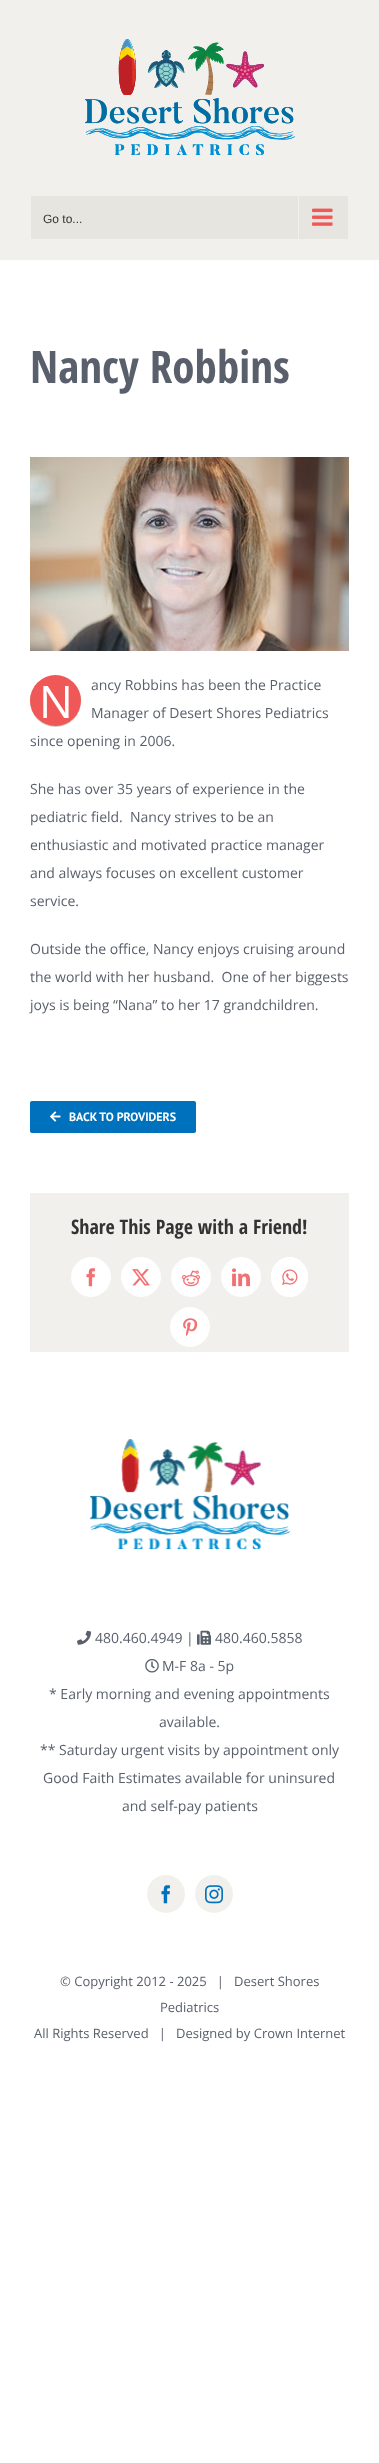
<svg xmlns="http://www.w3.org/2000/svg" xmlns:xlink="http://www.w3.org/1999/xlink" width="379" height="2463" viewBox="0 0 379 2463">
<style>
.cls-1{font:12px Liberation Sans;fill:#333333}
.cls-2{font:bold 45px Open Sans Condensed;fill:#595f6b}
.cls-3{font:45px Open Sans;fill:#ffffff}
.cls-4{font:14px Open Sans;fill:#595f6b}
.cls-5{font:bold 12px PT Sans;fill:#ffffff}
.cls-6{font:bold 20px Open Sans Condensed;fill:#333333}
.cls-7{font:13px Open Sans;fill:#595f6b}
</style>
<rect width="100%" height="100%" fill="#ffffff"/>
<rect fill="#f1f0ec" x="0" y="0" width="379" height="260"/>
<image xlink:href="image0.png" x="85" y="39" width="210" height="116"/>
<rect fill="#e6e5df" x="31" y="196" width="317" height="43"/>
<rect fill="#f1f0ec" x="298" y="196" width="1" height="43"/>
<image xlink:href="image1.png" x="312" y="208" width="21" height="18"/>
<image xlink:href="image2.png" x="30" y="457" width="319" height="194"/>
<rect fill="#000000" fill-opacity="0.2" filter="blur(0.5px)" x="30" y="676" width="51" height="51" rx="25.5"/>
<circle fill="#f05858" cx="55.5" cy="700.5" r="25.5"/>
<rect fill="#0071bd" x="30" y="1101" width="166" height="32" rx="2"/>
<image xlink:href="image3.png" x="50" y="1111" width="11" height="11"/>
<rect fill="#f1f0ec" x="30" y="1193" width="319" height="159"/>
<circle fill="#ffffff" stroke="#ffffff" cx="91" cy="1277" r="19.5"/>
<image xlink:href="image4.png" x="86" y="1268" width="9" height="19"/>
<circle fill="#ffffff" stroke="#ffffff" cx="141" cy="1277" r="19.5"/>
<image xlink:href="image5.png" x="132" y="1269" width="18" height="17"/>
<circle fill="#ffffff" stroke="#ffffff" cx="191" cy="1277" r="19.5"/>
<image xlink:href="image6.png" x="182" y="1270" width="18" height="17"/>
<circle fill="#ffffff" stroke="#ffffff" cx="241" cy="1277" r="19.5"/>
<image xlink:href="image7.png" x="232" y="1268" width="18" height="19"/>
<ellipse fill="#ffffff" cx="289.5" cy="1277" rx="18.5" ry="20"/>
<path fill="none" stroke="#ffffff" d="M289.5 1257.5C299.5 1257.5 307.5 1266 307.5 1277C307.5 1288 299.5 1296.5 289.5 1296.5C279.5 1296.5 271.5 1288 271.5 1277C271.5 1266 279.5 1257.5 289.5 1257.5Z"/>
<image xlink:href="image8.png" x="282" y="1269" width="16" height="16"/>
<circle fill="#ffffff" stroke="#ffffff" cx="190" cy="1327" r="19.5"/>
<image xlink:href="image9.png" x="183" y="1318" width="15" height="19"/>
<image xlink:href="image10.png" x="90" y="1439" width="200" height="111"/>
<image xlink:href="image11.png" x="77" y="1630" width="14" height="15"/>
<image xlink:href="image12.png" x="197" y="1630" width="14" height="15"/>
<image xlink:href="image13.png" x="145" y="1659" width="14" height="14"/>
<circle fill="#f1f0ec" cx="166" cy="1894" r="19"/>
<image xlink:href="image14.png" x="161" y="1885" width="9" height="19"/>
<circle fill="#f1f0ec" cx="214" cy="1894" r="19"/>
<image xlink:href="image15.png" x="205" y="1885" width="18" height="19"/>
<text class="cls-1" x="43" y="223">Go to...</text>
<text class="cls-2" x="30" y="383">Nancy Robbins</text>
<text class="cls-3" x="39" y="718">N</text>
<text class="cls-4" x="91" y="690">ancy Robbins has been the Practice</text>
<text class="cls-4" x="91" y="718">Manager of Desert Shores Pediatrics</text>
<text class="cls-4" x="30" y="746">since opening in 2006.</text>
<text class="cls-4" x="30" y="794">She has over 35 years of experience in the</text>
<text class="cls-4" xml:space="preserve" x="30" y="822">pediatric field.  Nancy strives to be an</text>
<text class="cls-4" x="30" y="850">enthusiastic and motivated practice manager</text>
<text class="cls-4" x="30" y="878">and always focuses on excellent customer</text>
<text class="cls-4" x="30" y="906">service.</text>
<text class="cls-4" x="30" y="954">Outside the office, Nancy enjoys cruising around</text>
<text class="cls-4" xml:space="preserve" x="30" y="982">the world with her husband.  One of her biggests</text>
<text class="cls-4" x="30" y="1010">joys is being “Nana” to her 17 grandchildren.</text>
<text class="cls-5" x="69" y="1121">BACK TO PROVIDERS</text>
<text class="cls-6" x="71" y="1234">Share This Page with a Friend!</text>
<text class="cls-4" x="95" y="1643">480.460.4949 |</text>
<text class="cls-4" x="215" y="1643">480.460.5858</text>
<text class="cls-4" x="162" y="1671">M-F 8a - 5p</text>
<text class="cls-4" x="49" y="1699">* Early morning and evening appointments</text>
<text class="cls-4" x="159" y="1727">available.</text>
<text class="cls-4" x="40" y="1755">** Saturday urgent visits by appointment only</text>
<text class="cls-4" x="43" y="1783">Good Faith Estimates available for uninsured</text>
<text class="cls-4" x="122" y="1811">and self-pay patients</text>
<text class="cls-7" xml:space="preserve" x="60" y="1986">© Copyright 2012 - 2025   |   Desert Shores</text>
<text class="cls-7" x="160" y="2012">Pediatrics</text>
<text class="cls-7" xml:space="preserve" x="34" y="2038">All Rights Reserved   |   Designed by Crown Internet</text>
</svg>
